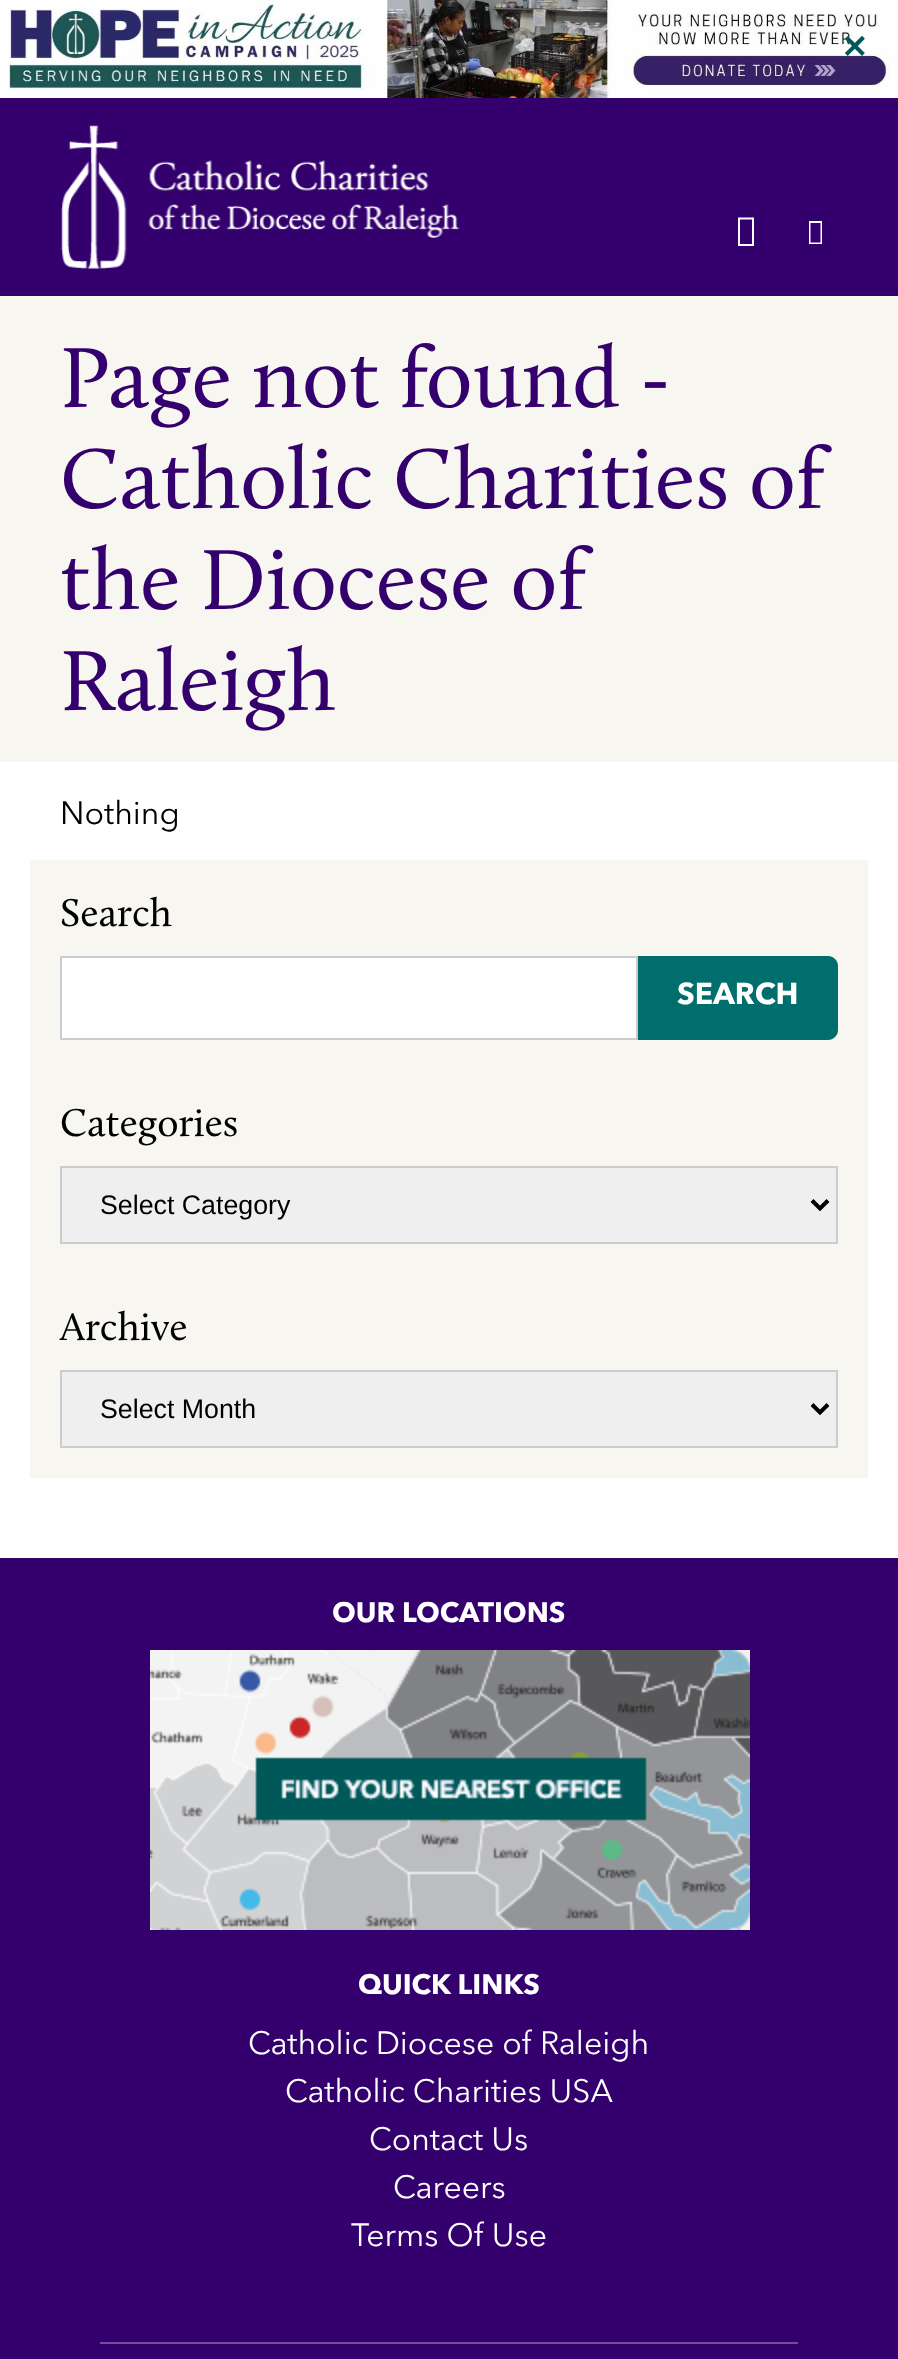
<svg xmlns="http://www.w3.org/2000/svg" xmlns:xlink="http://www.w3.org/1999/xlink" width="898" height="2359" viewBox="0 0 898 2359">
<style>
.cls-1{font:bold 32px DejaVu Sans;fill:#005958}
.cls-2{font:88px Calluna;fill:#34006e}
.cls-3{font:32px Avenir Next;fill:#000000}
.cls-4{font:40px Calluna;fill:#000000}
.cls-5{font:bold 30px Avenir Next;fill:#ffffff}
.cls-6{font:26.75px Liberation Sans;fill:#000000}
.cls-7{font:bold 28px Avenir Next;fill:#ffffff}
.cls-8{font:32px Avenir Next;fill:#ffffff}
</style>
<rect width="100%" height="100%" fill="#ffffff"/>
<image xlink:href="image0.png" x="0" y="0" width="898" height="98"/>
<rect fill="#34006e" x="0" y="98" width="898" height="198"/>
<image xlink:href="image1.png" x="61" y="125" width="399" height="144"/>
<path fill="#ffffff" d="M738 246V217.5H754V246ZM740 244H752V219.5H740Z"/>
<path fill="#ffffff" d="M809 244V221H822V244ZM810.5 242.5H820.5V223H810.5Z"/>
<rect fill="#f8f6f0" x="0" y="296" width="898" height="466"/>
<rect fill="#f8f6f0" x="30" y="860" width="838" height="618"/>
<rect fill="#ffffff" stroke="#cccccc" stroke-width="2" x="61" y="957" width="576" height="82"/>
<path fill="#006e6d" d="M638 956H828C833.5 956 838 960.5 838 966V1030C838 1035.5 833.5 1040 828 1040H638Z"/>
<rect fill="#efefef" stroke="#cccccc" stroke-width="2" x="61" y="1167" width="776" height="76"/>
<path fill="none" stroke="#000000" stroke-width="4" d="M812 1200.5L820 1208.5L828 1200.5"/>
<rect fill="#efefef" stroke="#cccccc" stroke-width="2" x="61" y="1371" width="776" height="76"/>
<path fill="none" stroke="#000000" stroke-width="4" d="M812 1404.5L820 1412.5L828 1404.5"/>
<rect fill="#34006e" x="0" y="1558" width="898" height="801"/>
<image xlink:href="image2.png" x="150" y="1650" width="600" height="280"/>
<rect fill="#714d9a" x="100" y="2342" width="698" height="2"/>
<text class="cls-1" x="841" y="58">✕</text>
<text class="cls-2"><tspan x="60" y="407">Page not found -</tspan><tspan x="60" y="508">Catholic Charities of</tspan><tspan x="60" y="609">the Diocese of</tspan><tspan x="60" y="710">Raleigh</tspan></text>
<text class="cls-3" x="60" y="824">Nothing</text>
<text class="cls-4" x="60" y="926">Search</text>
<text class="cls-5" x="677" y="1004">SEARCH</text>
<text class="cls-4" x="60" y="1136">Categories</text>
<text class="cls-6" x="100" y="1214">Select Category</text>
<text class="cls-4" x="60" y="1340">Archive</text>
<text class="cls-6" x="100" y="1418">Select Month</text>
<text class="cls-7" x="332" y="1622">OUR LOCATIONS</text>
<text class="cls-7" x="358" y="1994">QUICK LINKS</text>
<text class="cls-8" x="248" y="2054">Catholic Diocese of Raleigh</text>
<text class="cls-8" x="285" y="2102">Catholic Charities USA</text>
<text class="cls-8" x="369" y="2150">Contact Us</text>
<text class="cls-8" x="393" y="2198">Careers</text>
<text class="cls-8" x="351" y="2246">Terms Of Use</text>
</svg>
